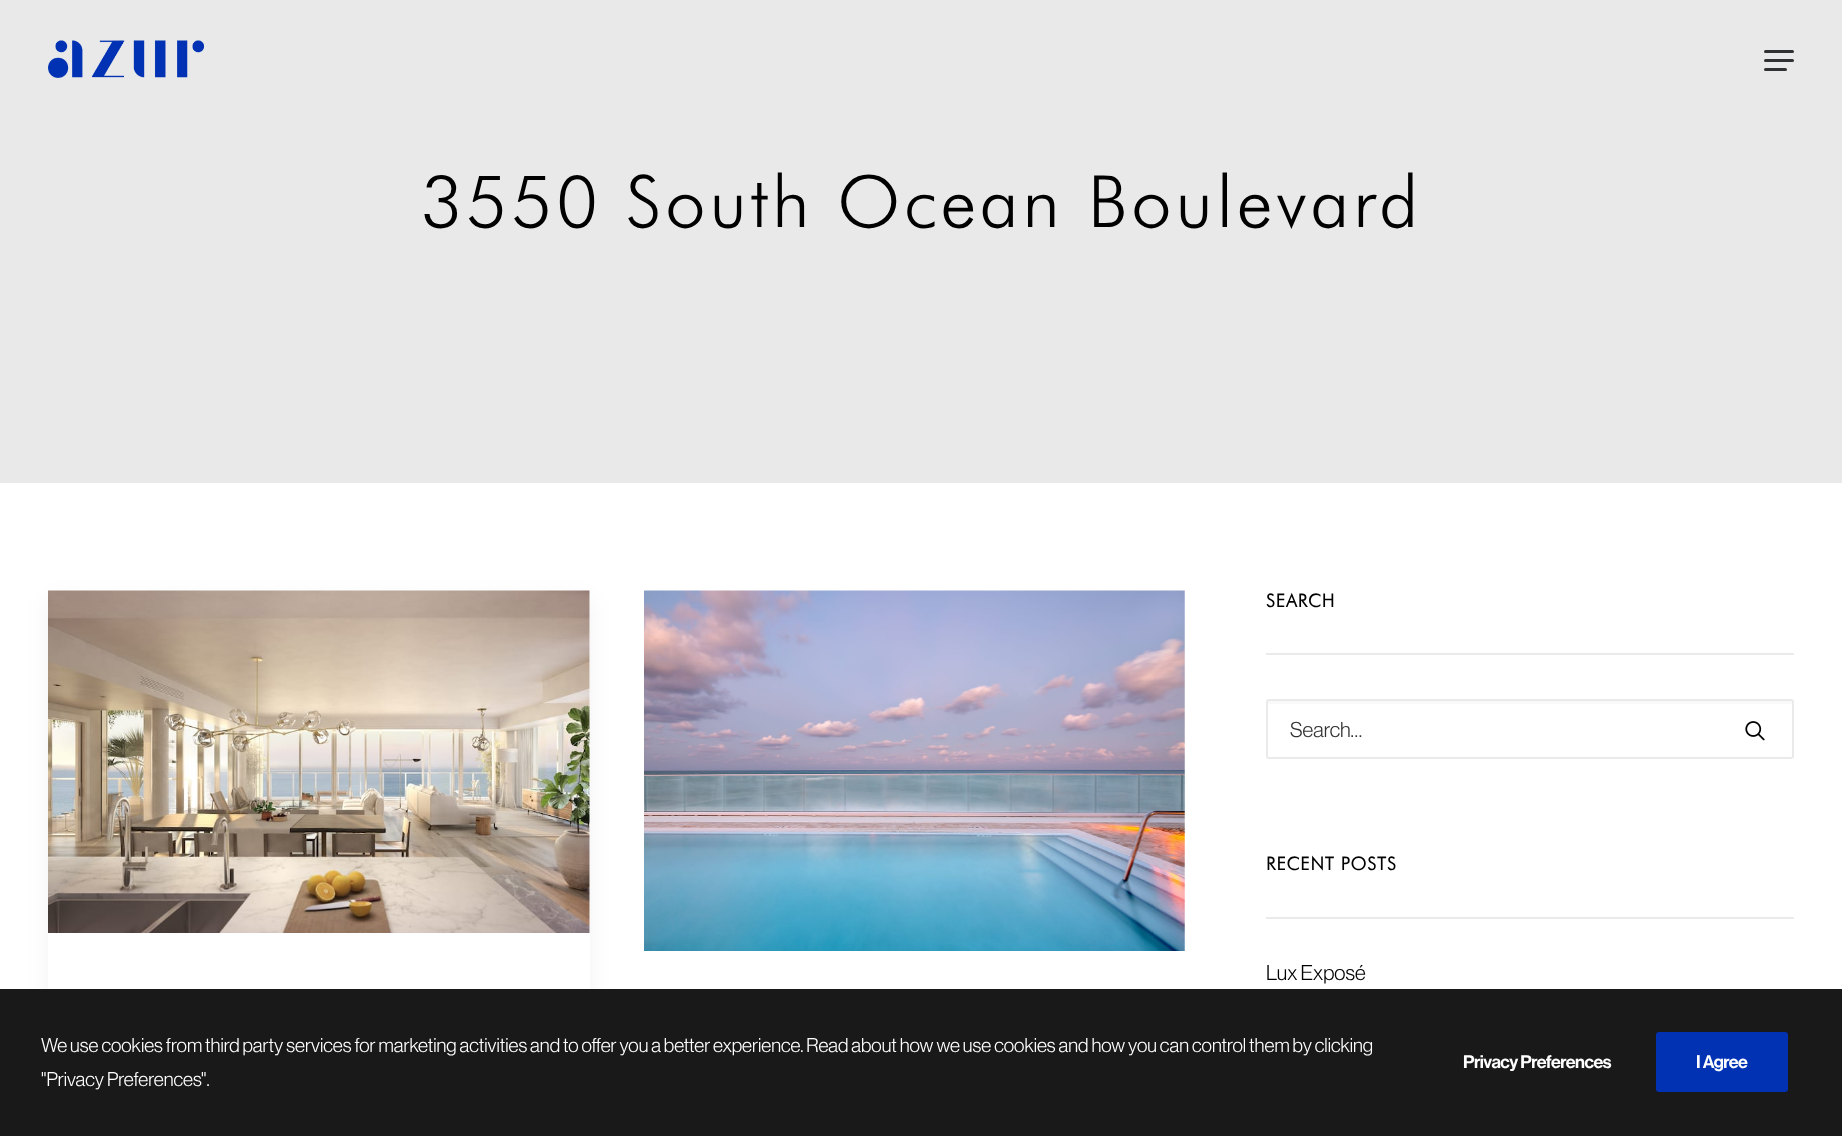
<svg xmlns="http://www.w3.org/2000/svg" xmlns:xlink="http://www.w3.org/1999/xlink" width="1842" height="1136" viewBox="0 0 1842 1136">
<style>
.cls-1{font:300 72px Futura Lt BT;letter-spacing:3.6px;fill:#000000}
.cls-2{font:bold 18px Futura Lt BT;letter-spacing:0.9px;fill:#000000}
.cls-3{font:21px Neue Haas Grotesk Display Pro;fill:#323232}
.cls-4{font:21px Neue Haas Grotesk Display Pro;fill:#000000}
.cls-5{font:19.5px Neue Haas Grotesk Display Pro;fill:#ffffff}
.cls-6{font:500 18px Neue Haas Grotesk Display Pro;letter-spacing:-0.5px;fill:#ffffff}
</style>
<rect width="100%" height="100%" fill="#ffffff"/>
<rect fill="#e9e9e9" x="0" y="0" width="1842" height="483"/>
<image xlink:href="image0.png" x="48" y="40" width="156" height="38"/>
<rect fill="#303133" x="1764" y="59" width="30" height="3" rx="1.5"/>
<rect fill="#303133" x="1764" y="50" width="30" height="3" rx="1.5"/>
<rect fill="#303133" x="1764" y="68" width="23" height="3" rx="1.5"/>
<rect fill="#000000" fill-opacity="0.05" filter="blur(11px)" x="48" y="599" width="542" height="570"/>
<rect fill="#ffffff" x="48" y="591" width="542" height="545"/>
<image xlink:href="image1.png" x="48" y="590" width="542" height="343"/>
<image xlink:href="image2.png" x="644" y="590" width="541" height="361"/>
<rect fill="#eaeaea" x="1266" y="653" width="528" height="2"/>
<path fill="#f9f9f9" d="M1269 704H1791C1792 704 1792 704 1792 705V758L1793 757V702L1792 701H1270H1268V705C1268 704 1268 704 1269 704Z"/>
<rect fill="none" stroke="#eaeaea" stroke-width="2" x="1267" y="700" width="526" height="58" rx="2"/>
<image xlink:href="image3.png" x="1745" y="721" width="20" height="20"/>
<rect fill="#eaeaea" x="1266" y="917" width="528" height="2"/>
<rect fill="#000000" fill-opacity="0.9" x="0" y="989" width="1842" height="147"/>
<rect fill="#0132b4" x="1656" y="1032" width="132" height="60" rx="3"/>
<text class="cls-1" x="421" y="227">3550 South Ocean Boulevard</text>
<text class="cls-2" x="1266" y="607">SEARCH</text>
<text class="cls-3" x="1290" y="737">Search…</text>
<text class="cls-2" x="1266" y="870">RECENT POSTS</text>
<text class="cls-4" x="1266" y="980">Lux Exposé</text>
<text class="cls-5"><tspan x="41" y="1052">We use cookies from third party services for marketing activities and to offer you a better experience. Read about how we use cookies and how you can control them by clicking</tspan><tspan x="41" y="1086">"Privacy Preferences".</tspan></text>
<text class="cls-6" x="1463" y="1068">Privacy Preferences</text>
<text class="cls-6" x="1696" y="1068">I Agree</text>
</svg>
